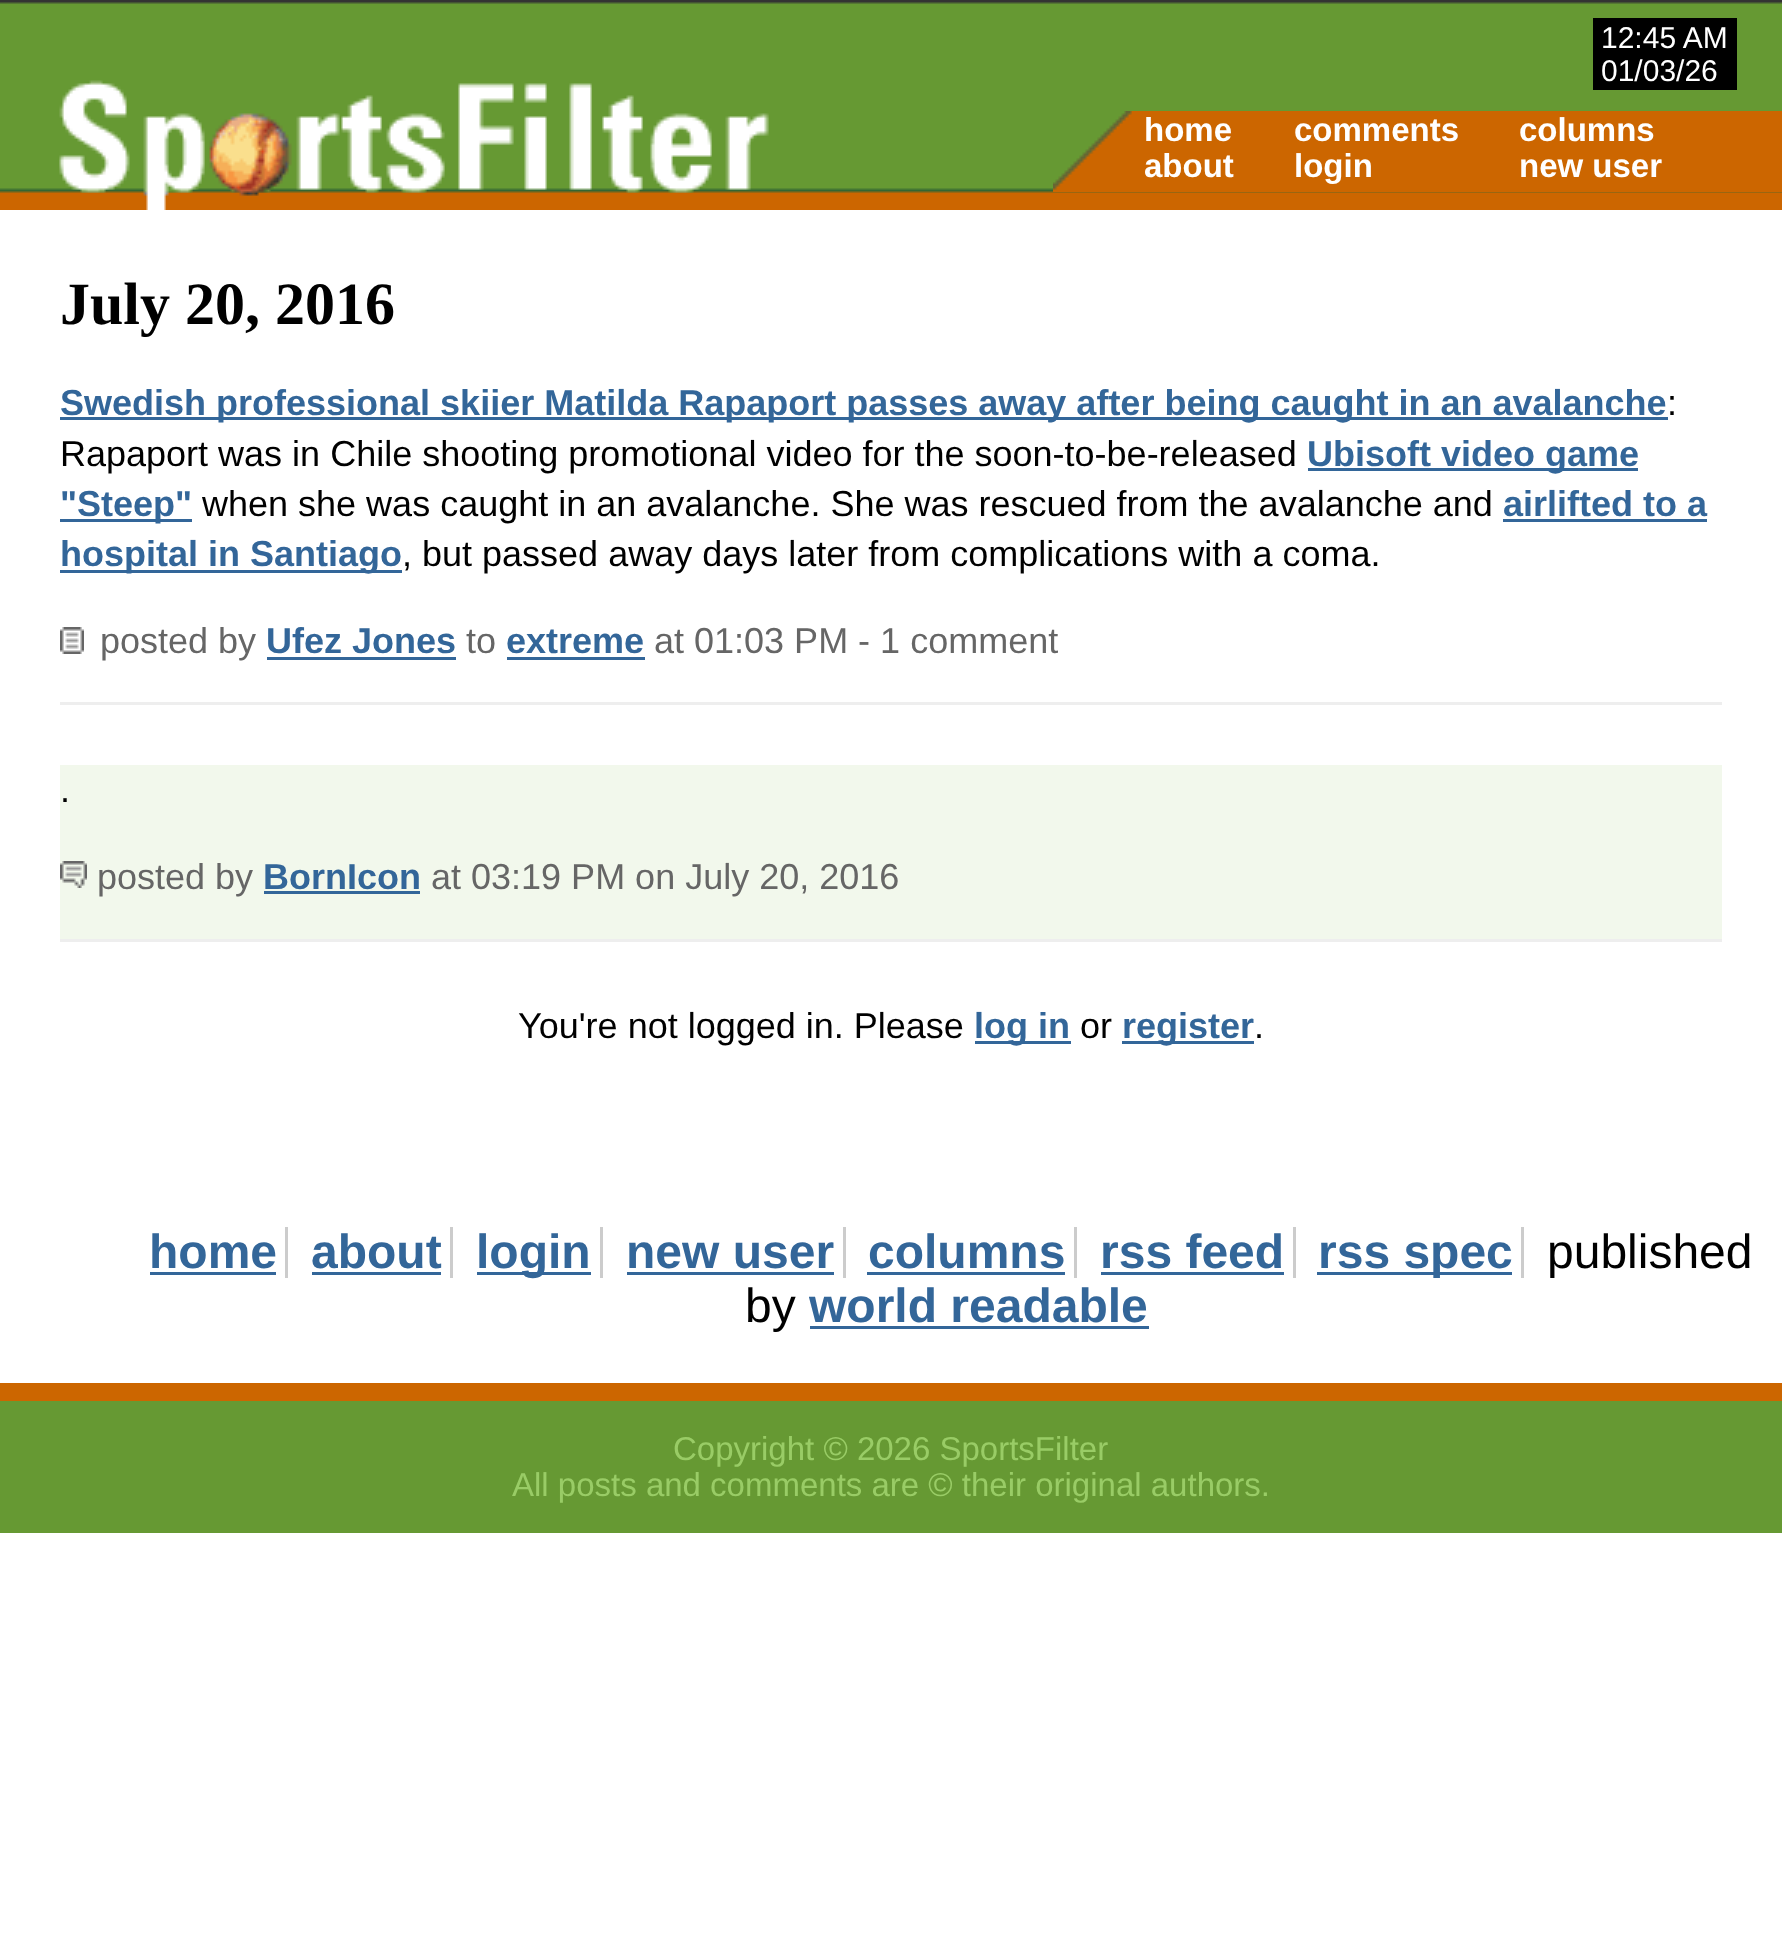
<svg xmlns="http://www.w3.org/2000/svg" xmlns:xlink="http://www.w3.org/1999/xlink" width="1782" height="1950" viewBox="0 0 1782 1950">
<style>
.cls-1{font:30px Liberation Sans;fill:#ffffff}
.cls-2{font:bold 33px Liberation Sans;fill:#ffffff}
.cls-3{font:bold 60px Liberation Serif;fill:#000000}
.cls-4{font:bold 36px Liberation Sans;fill:#336699}
.cls-5{font:36px Liberation Sans;fill:#000000}
.cls-6{font:36px Liberation Sans;fill:#666666}
.cls-7{font:bold 48px Liberation Sans;fill:#336699}
.cls-8{font:48px Liberation Sans;fill:#000000}
.cls-9{font:33px Liberation Sans;fill:#99cc66}
</style>
<rect width="100%" height="100%" fill="#ffffff"/>
<image xlink:href="image0.png" x="0" y="0" width="1782" height="210"/>
<rect fill="#000000" x="1593" y="18" width="144" height="72"/>
<image xlink:href="image1.png" x="59" y="80" width="710" height="130"/>
<rect fill="#cc6600" x="1053" y="111" width="729" height="81"/>
<image xlink:href="image2.png" x="1053" y="111" width="79" height="79"/>
<rect fill="#eeeeee" x="60" y="702" width="1662" height="3"/>
<rect fill="#336699" x="60" y="417" width="1608" height="3"/>
<rect fill="#336699" x="1308" y="468" width="330" height="3"/>
<rect fill="#336699" x="60" y="519" width="132" height="3"/>
<rect fill="#336699" x="1503" y="519" width="204" height="3"/>
<rect fill="#336699" x="60" y="570" width="342" height="3"/>
<image xlink:href="image3.png" x="60" y="627" width="24" height="27"/>
<rect fill="#336699" x="267" y="657" width="189" height="3"/>
<rect fill="#336699" x="507" y="657" width="138" height="3"/>
<rect fill="#f2f8ec" x="60" y="765" width="1662" height="174"/>
<rect fill="#eeeeee" x="60" y="939" width="1662" height="3"/>
<image xlink:href="image4.png" x="60" y="861" width="27" height="27"/>
<rect fill="#336699" x="264" y="891" width="156" height="3"/>
<rect fill="#336699" x="975" y="1041" width="96" height="3"/>
<rect fill="#336699" x="1122" y="1041" width="132" height="3"/>
<rect fill="#cccccc" x="285" y="1227" width="3" height="51"/>
<rect fill="#336699" x="150" y="1272" width="126" height="3"/>
<rect fill="#cccccc" x="450" y="1227" width="3" height="51"/>
<rect fill="#336699" x="312" y="1272" width="129" height="3"/>
<rect fill="#cccccc" x="600" y="1227" width="3" height="51"/>
<rect fill="#336699" x="477" y="1272" width="114" height="3"/>
<rect fill="#cccccc" x="843" y="1227" width="3" height="51"/>
<rect fill="#336699" x="627" y="1272" width="207" height="3"/>
<rect fill="#cccccc" x="1074" y="1227" width="3" height="51"/>
<rect fill="#336699" x="867" y="1272" width="198" height="3"/>
<rect fill="#cccccc" x="1293" y="1227" width="3" height="51"/>
<rect fill="#336699" x="1101" y="1272" width="183" height="3"/>
<rect fill="#cccccc" x="1521" y="1227" width="3" height="51"/>
<rect fill="#336699" x="1317" y="1272" width="195" height="3"/>
<rect fill="#336699" x="810" y="1326" width="339" height="3"/>
<rect fill="#669933" x="0" y="1401" width="1782" height="132"/>
<rect fill="#cc6600" x="0" y="1383" width="1782" height="18"/>
<text class="cls-1"><tspan x="1601" y="48">12:45 AM</tspan><tspan x="1601" y="81">01/03/26</tspan></text>
<text class="cls-2" x="1144" y="141">home</text>
<text class="cls-2" x="1294" y="141">comments</text>
<text class="cls-2" x="1519" y="141">columns</text>
<text class="cls-2" x="1144" y="177">about</text>
<text class="cls-2" x="1294" y="177">login</text>
<text class="cls-2" x="1519" y="177">new user</text>
<text class="cls-3" x="60" y="324">July 20, 2016</text>
<text class="cls-4" x="60" y="415">Swedish professional skiier Matilda Rapaport passes away after being caught in an avalanche</text>
<text class="cls-5" x="1667" y="415">:</text>
<text class="cls-5" x="60" y="466">Rapaport was in Chile shooting promotional video for the soon-to-be-released</text>
<text class="cls-4" x="1307" y="466">Ubisoft video game</text>
<text class="cls-4" x="60" y="516">"Steep"</text>
<text class="cls-5" x="202" y="516">when she was caught in an avalanche. She was rescued from the avalanche and</text>
<text class="cls-4" x="1503" y="516">airlifted to a</text>
<text class="cls-4" x="60" y="566">hospital in Santiago</text>
<text class="cls-5" x="402" y="566">, but passed away days later from complications with a coma.</text>
<text class="cls-6" x="100" y="653">posted by</text>
<text class="cls-4" x="266" y="653">Ufez Jones</text>
<text class="cls-6" x="466" y="653">to</text>
<text class="cls-4" x="506" y="653">extreme</text>
<text class="cls-6" x="654" y="653">at 01:03 PM - 1 comment</text>
<text class="cls-5" x="60" y="802">.</text>
<text class="cls-6" x="97" y="889">posted by</text>
<text class="cls-4" x="263" y="889">BornIcon</text>
<text class="cls-6" x="431" y="889">at 03:19 PM on July 20, 2016</text>
<text class="cls-5" x="518" y="1038">You're not logged in. Please</text>
<text class="cls-4" x="974" y="1038">log in</text>
<text class="cls-5" x="1080" y="1038">or</text>
<text class="cls-4" x="1122" y="1038">register</text>
<text class="cls-5" x="1254" y="1038">.</text>
<text class="cls-7" x="149" y="1268">home</text>
<text class="cls-7" x="311" y="1268">about</text>
<text class="cls-7" x="476" y="1268">login</text>
<text class="cls-7" x="626" y="1268">new user</text>
<text class="cls-7" x="868" y="1268">columns</text>
<text class="cls-7" x="1100" y="1268">rss feed</text>
<text class="cls-7" x="1318" y="1268">rss spec</text>
<text class="cls-8" x="1547" y="1268">published</text>
<text class="cls-8" x="745" y="1322">by</text>
<text class="cls-7" x="809" y="1322">world readable</text>
<text class="cls-9" x="673" y="1460">Copyright © 2026 SportsFilter</text>
<text class="cls-9" x="512" y="1496">All posts and comments are © their original authors.</text>
</svg>
